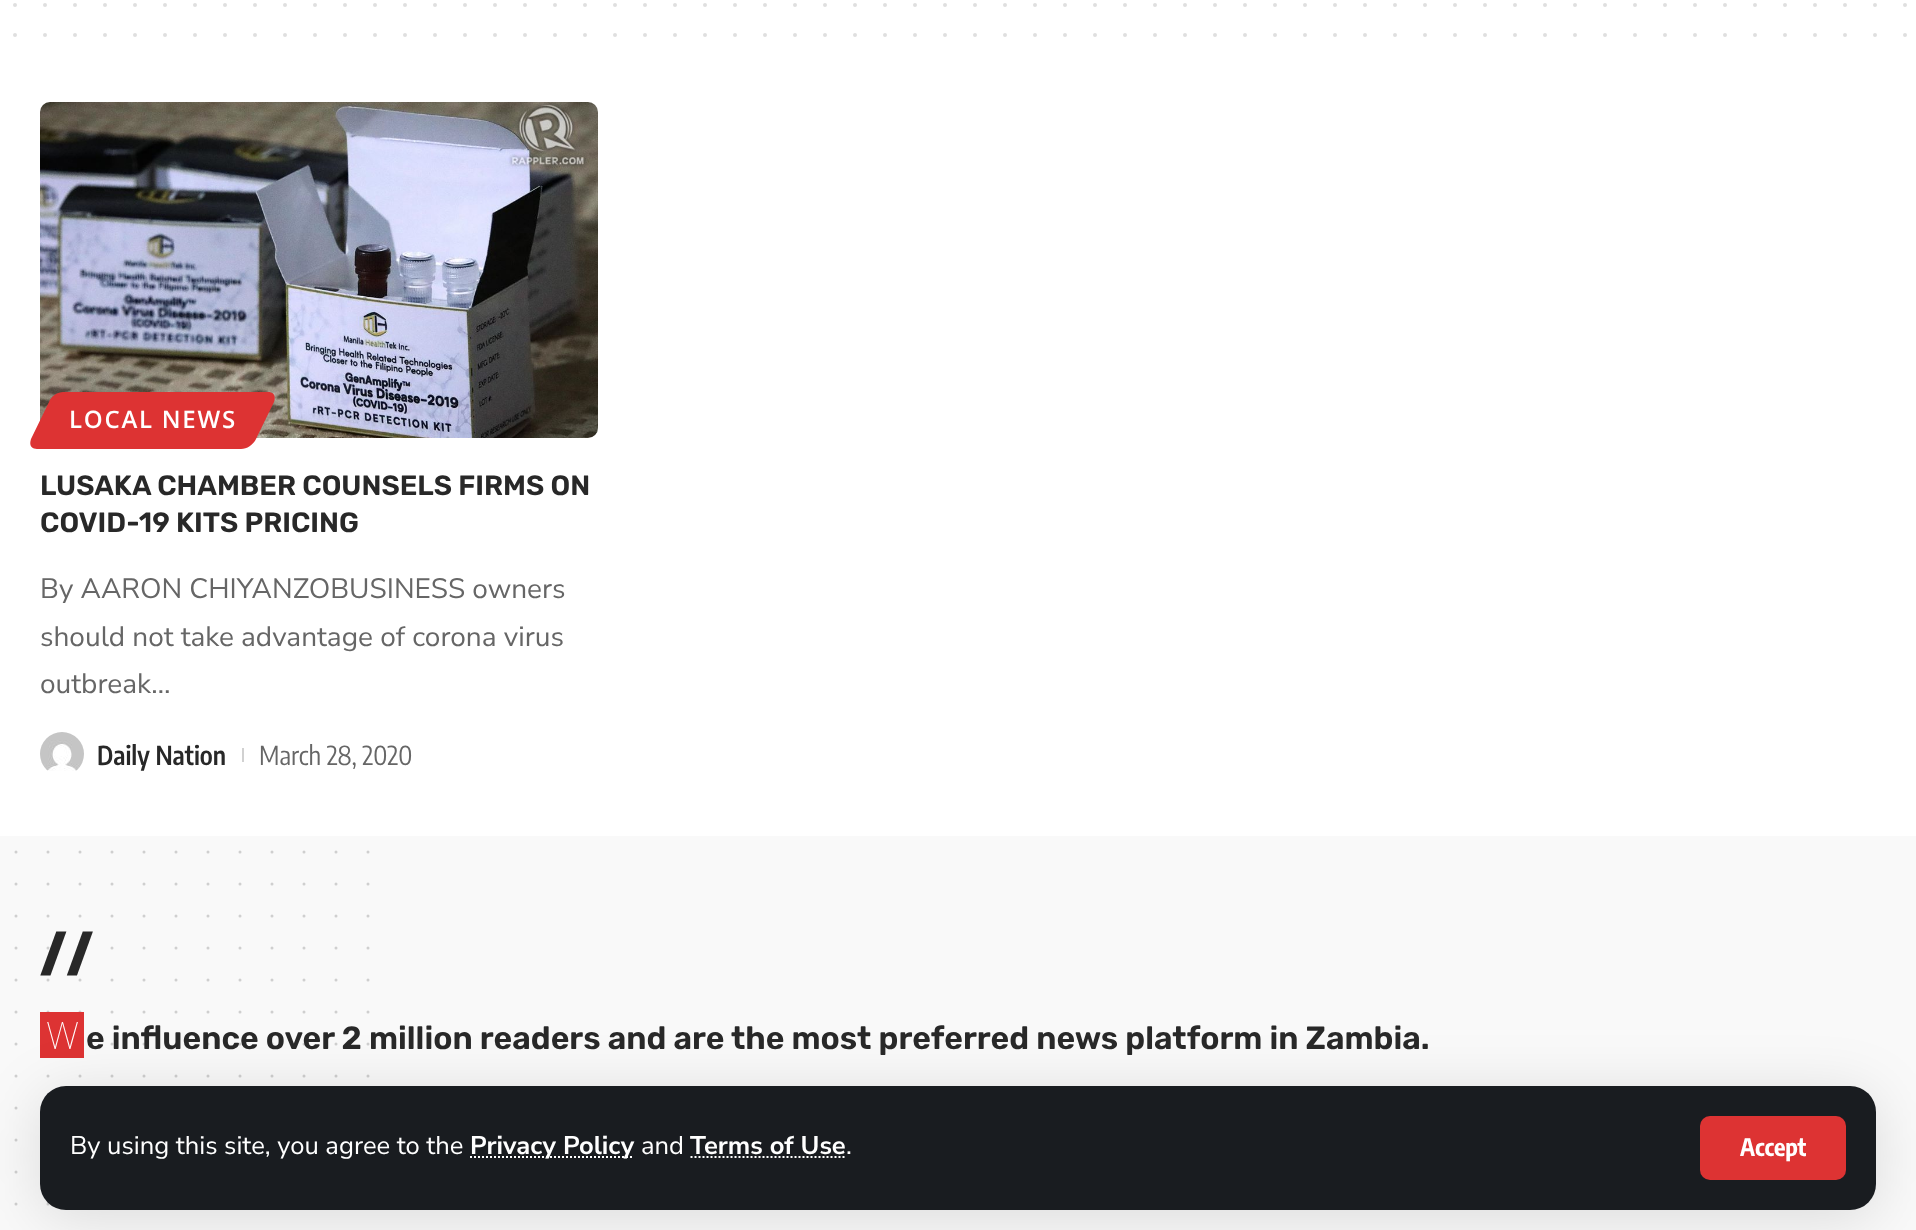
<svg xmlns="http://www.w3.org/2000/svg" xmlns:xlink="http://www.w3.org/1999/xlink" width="1916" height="1230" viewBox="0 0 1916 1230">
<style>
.cls-1{font:600 24px Open Sans;letter-spacing:1.75px;fill:#ffffff}
.cls-2{font:600 28px Rubik;fill:#282828}
.cls-3{font:28px Nunito Sans;fill:#666666}
.cls-4{font:600 26px Encode Sans Condensed;fill:#282828}
.cls-5{font:26px Encode Sans Condensed;fill:#666666}
.cls-6{font:800 60px Open Sans;fill:#282828}
.cls-7{font:100 38px Noto Sans;fill:#ffffff}
.cls-8{font:600 32px Rubik;fill:#282828}
.cls-9{font:25.6px Nunito Sans;fill:#ffffff}
.cls-10{font:bold 25.6px Nunito Sans;fill:#ffffff}
.cls-11{font:bold 24px Encode Sans Condensed;fill:#ffffff}
</style>
<rect width="100%" height="100%" fill="#ffffff"/>
<path fill="none" stroke="#dfdfdf" stroke-width="4" stroke-linecap="round" stroke-dasharray="0 30" d="M15 5H1905.4"/>
<path fill="none" stroke="#dfdfdf" stroke-width="4" stroke-linecap="round" stroke-dasharray="0 30" d="M15 35H1905.4"/>
<image xlink:href="image0.png" x="40" y="102" width="558" height="336"/>
<path fill="#dd3333" d="M63 392H268C274 392 276 396 274 402L256 439C253 445 247 449 241 449H37C31 449 29 445 31 439L49 402C51 396 58 392 63 392Z"/>
<image xlink:href="image1.png" x="40" y="732" width="44" height="39"/>
<rect fill="#d1d1d1" x="242" y="748" width="2" height="14"/>
<rect fill="#f9f9f9" x="0" y="836" width="1916" height="394"/>
<path fill="none" stroke="#cfcfcf" stroke-width="3" stroke-linecap="round" stroke-dasharray="0 32" d="M16 852V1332.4"/>
<path fill="none" stroke="#cfcfcf" stroke-width="3" stroke-linecap="round" stroke-dasharray="0 32" d="M48 852V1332.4"/>
<path fill="none" stroke="#cfcfcf" stroke-width="3" stroke-linecap="round" stroke-dasharray="0 32" d="M80 852V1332.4"/>
<path fill="none" stroke="#cfcfcf" stroke-width="3" stroke-linecap="round" stroke-dasharray="0 32" d="M112 852V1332.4"/>
<path fill="none" stroke="#cfcfcf" stroke-width="3" stroke-linecap="round" stroke-dasharray="0 32" d="M144 852V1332.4"/>
<path fill="none" stroke="#cfcfcf" stroke-width="3" stroke-linecap="round" stroke-dasharray="0 32" d="M176 852V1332.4"/>
<path fill="none" stroke="#cfcfcf" stroke-width="3" stroke-linecap="round" stroke-dasharray="0 32" d="M208 852V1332.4"/>
<path fill="none" stroke="#cfcfcf" stroke-width="3" stroke-linecap="round" stroke-dasharray="0 32" d="M240 852V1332.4"/>
<path fill="none" stroke="#cfcfcf" stroke-width="3" stroke-linecap="round" stroke-dasharray="0 32" d="M272 852V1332.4"/>
<path fill="none" stroke="#cfcfcf" stroke-width="3" stroke-linecap="round" stroke-dasharray="0 32" d="M304 852V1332.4"/>
<path fill="none" stroke="#cfcfcf" stroke-width="3" stroke-linecap="round" stroke-dasharray="0 32" d="M336 852V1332.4"/>
<path fill="none" stroke="#cfcfcf" stroke-width="3" stroke-linecap="round" stroke-dasharray="0 32" d="M368 852V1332.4"/>
<rect fill="#dd3333" x="40" y="1012" width="44" height="46"/>
<rect fill="#000000" fill-opacity="0.12" filter="blur(30px)" x="40" y="1094" width="1836" height="124" rx="26"/>
<rect fill="#191c20" x="40" y="1086" width="1836" height="124" rx="26"/>
<path fill="none" stroke="#ffffff" stroke-width="2" stroke-dasharray="2 2" d="M470 1157H634"/>
<path fill="none" stroke="#ffffff" stroke-width="2" stroke-dasharray="2 2" d="M690.5 1157H846"/>
<rect fill="#dd3333" x="1700" y="1116" width="146" height="64" rx="10"/>
<text class="cls-1" x="69" y="428">LOCAL NEWS</text>
<text class="cls-2"><tspan x="40" y="495">LUSAKA CHAMBER COUNSELS FIRMS ON</tspan><tspan x="40" y="532">COVID-19 KITS PRICING</tspan></text>
<text class="cls-3"><tspan x="40" y="598">By AARON CHIYANZOBUSINESS owners</tspan><tspan x="40" y="646">should not take advantage of corona virus</tspan><tspan x="40" y="693">outbreak…</tspan></text>
<text class="cls-4" x="97" y="765">Daily Nation</text>
<text class="cls-5" x="259" y="765">March 28, 2020</text>
<text class="cls-6" x="40" y="975">//</text>
<text class="cls-7" x="46" y="1049">W</text>
<text class="cls-8" x="86" y="1049">e influence over 2 million readers and are the most preferred news platform in Zambia.</text>
<text class="cls-9" x="70" y="1154">By using this site, you agree to the</text>
<text class="cls-10" x="470" y="1154">Privacy Policy</text>
<text class="cls-9" x="641" y="1154">and</text>
<text class="cls-10" x="690" y="1154">Terms of Use</text>
<text class="cls-9" x="846" y="1154">.</text>
<text class="cls-11" x="1740" y="1156">Accept</text>
</svg>
